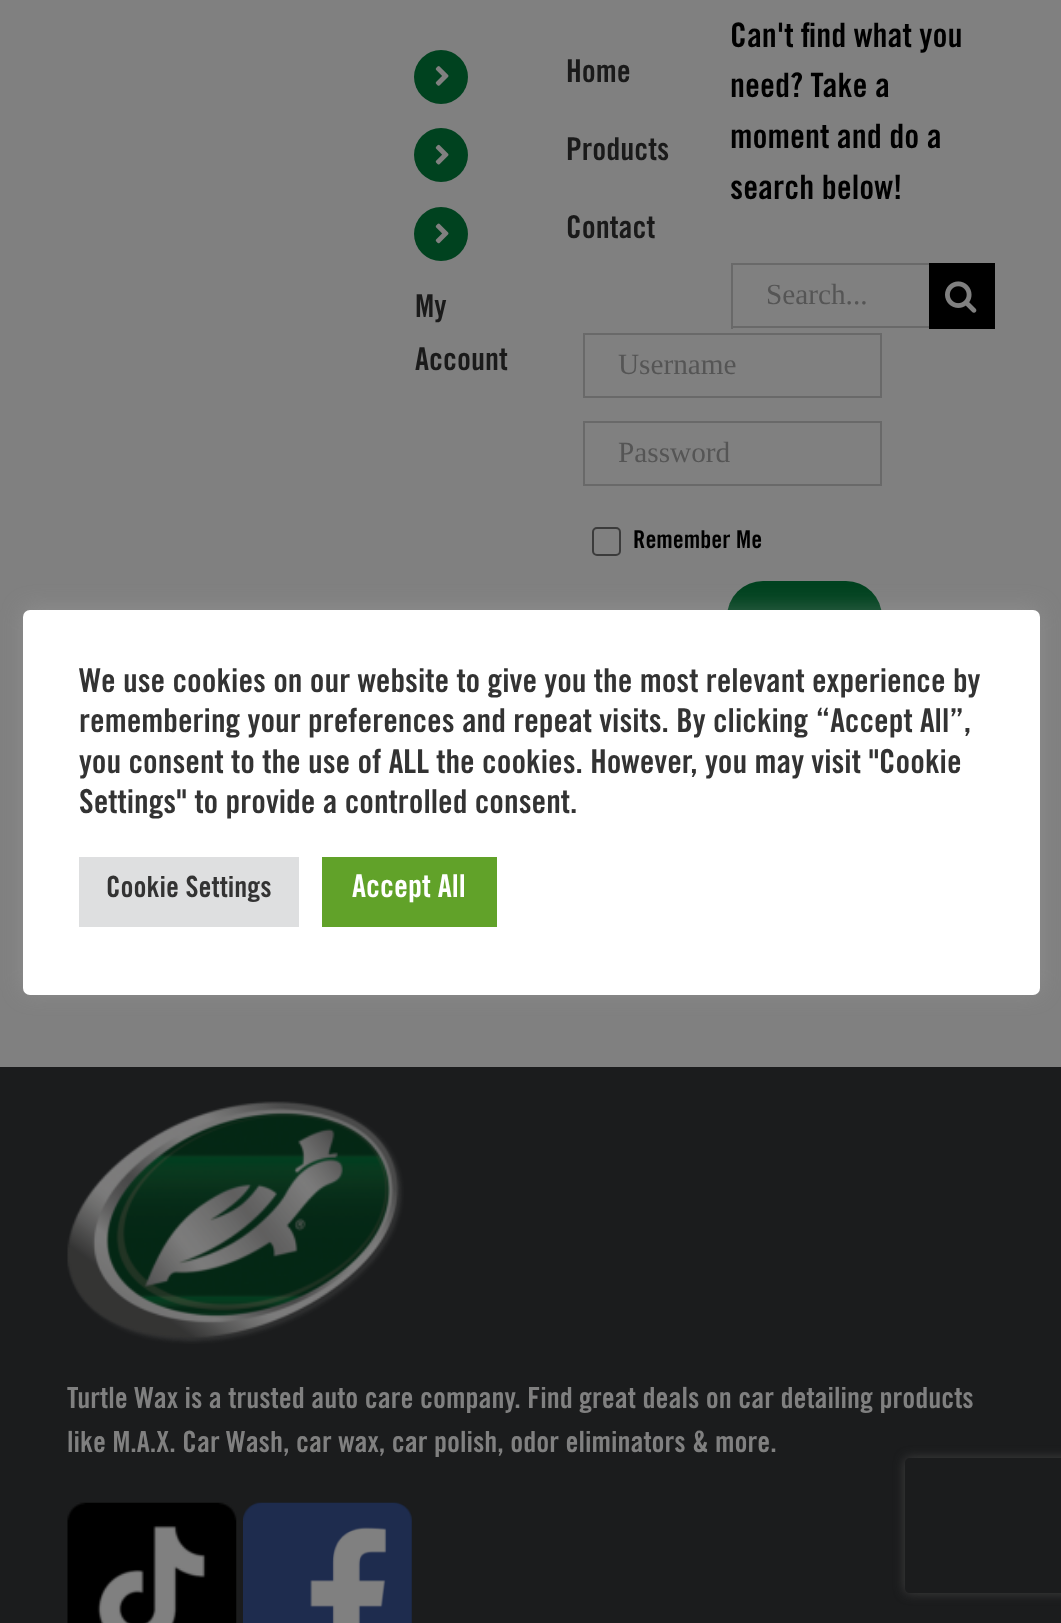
<svg xmlns="http://www.w3.org/2000/svg" xmlns:xlink="http://www.w3.org/1999/xlink" width="1061" height="1623" viewBox="0 0 1061 1623">
<style>
.cls-1{font:bold 31.5px Trade Gothic;fill:#1a1a1a}
.cls-2{font:29.25px Liberation Serif;fill:#555555}
.cls-3{font:bold 24.75px Trade Gothic;fill:#000000}
.cls-4{font:bold 33.75px Trade Gothic;fill:#000000}
.cls-5{font:bold 29.25px Trade Gothic;fill:#808080}
.cls-6{font:bold 33px Trade Gothic;fill:#333333}
.cls-7{font:bold 29.25px Trade Gothic;fill:#333333}
.cls-8{font:bold 31.5px Trade Gothic;fill:#ffffff}
</style>
<defs>
<clipPath id="clip1"><path d="M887 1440H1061V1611H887ZM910 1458H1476C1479 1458 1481 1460 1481 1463V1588C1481 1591 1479 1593 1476 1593H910C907 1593 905 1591 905 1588V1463C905 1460 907 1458 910 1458Z" clip-rule="evenodd"/></clipPath>
</defs>
<rect width="100%" height="100%" fill="#808080"/>
<circle fill="#00421f" cx="441" cy="77" r="27"/>
<image xlink:href="image0.png" x="435" y="66" width="14" height="20"/>
<circle fill="#00421f" cx="441" cy="155" r="27"/>
<image xlink:href="image1.png" x="435" y="144" width="14" height="21"/>
<circle fill="#00421f" cx="441" cy="234" r="27"/>
<image xlink:href="image2.png" x="435" y="223" width="14" height="21"/>
<rect fill="none" stroke="#696969" stroke-width="2" x="584" y="334" width="297" height="63"/>
<rect fill="none" stroke="#696969" stroke-width="2" x="584" y="422" width="297" height="63"/>
<rect fill="none" stroke="#3b3b3b" stroke-width="2" x="593" y="528" width="27" height="27" rx="4"/>
<rect fill="#00421f" x="727" y="581" width="155" height="72" rx="36"/>
<rect fill="#696969" x="731" y="263" width="198" height="2"/>
<rect fill="#696969" x="731" y="326" width="198" height="2"/>
<rect fill="#696969" x="731" y="263" width="2" height="66"/>
<rect fill="#000000" x="929" y="263" width="66" height="66"/>
<image xlink:href="image3.png" x="945" y="281" width="32" height="32"/>
<rect fill="#1b1c1d" x="0" y="1067" width="1061" height="556"/>
<image xlink:href="image4.png" x="67" y="1101" width="337" height="243"/>
<image xlink:href="image5.png" x="67" y="1502" width="170" height="121"/>
<image xlink:href="image6.png" x="243" y="1502" width="169" height="121"/>
<rect fill="#acabab" fill-opacity="0.3" filter="blur(11px)" x="23" y="608" width="1017" height="384" rx="7"/>
<rect fill="#ffffff" x="23" y="610" width="1017" height="385" rx="7"/>
<rect fill="#dedfe0" x="79" y="857" width="220" height="70"/>
<rect fill="#61a229" x="322" y="857" width="175" height="70"/>
<g clip-path="url(#clip1)">
<rect fill="#404040" filter="blur(5.5px)" x="905" y="1458" width="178" height="135" rx="5"/>
</g>
<text class="cls-1" x="566" y="82">Home</text>
<text class="cls-1" x="566" y="160">Products</text>
<text class="cls-1" x="566" y="238">Contact</text>
<text class="cls-1"><tspan x="415" y="317">My</tspan><tspan x="415" y="370">Account</tspan></text>
<text class="cls-2" x="618" y="374">Username</text>
<text class="cls-2" x="618" y="462">Password</text>
<text class="cls-3" x="633" y="548">Remember Me</text>
<text class="cls-4"><tspan x="730" y="47">Can't find what you</tspan><tspan x="730" y="97">need? Take a</tspan><tspan x="730" y="148">moment and do a</tspan><tspan x="730" y="199">search below!</tspan></text>
<text class="cls-2" x="766" y="304">Search...</text>
<text class="cls-5"><tspan x="67" y="1408">Turtle Wax is a trusted auto care company. Find great deals on car detailing products</tspan><tspan x="67" y="1452">like M.A.X. Car Wash, car wax, car polish, odor eliminators &amp; more.</tspan></text>
<text class="cls-6"><tspan x="79" y="692">We use cookies on our website to give you the most relevant experience by</tspan><tspan x="79" y="732">remembering your preferences and repeat visits. By clicking “Accept All”,</tspan><tspan x="79" y="773">you consent to the use of ALL the cookies. However, you may visit "Cookie</tspan><tspan x="79" y="813">Settings" to provide a controlled consent.</tspan></text>
<text class="cls-7" x="106" y="897">Cookie Settings</text>
<text class="cls-8" x="352" y="897">Accept All</text>
</svg>
